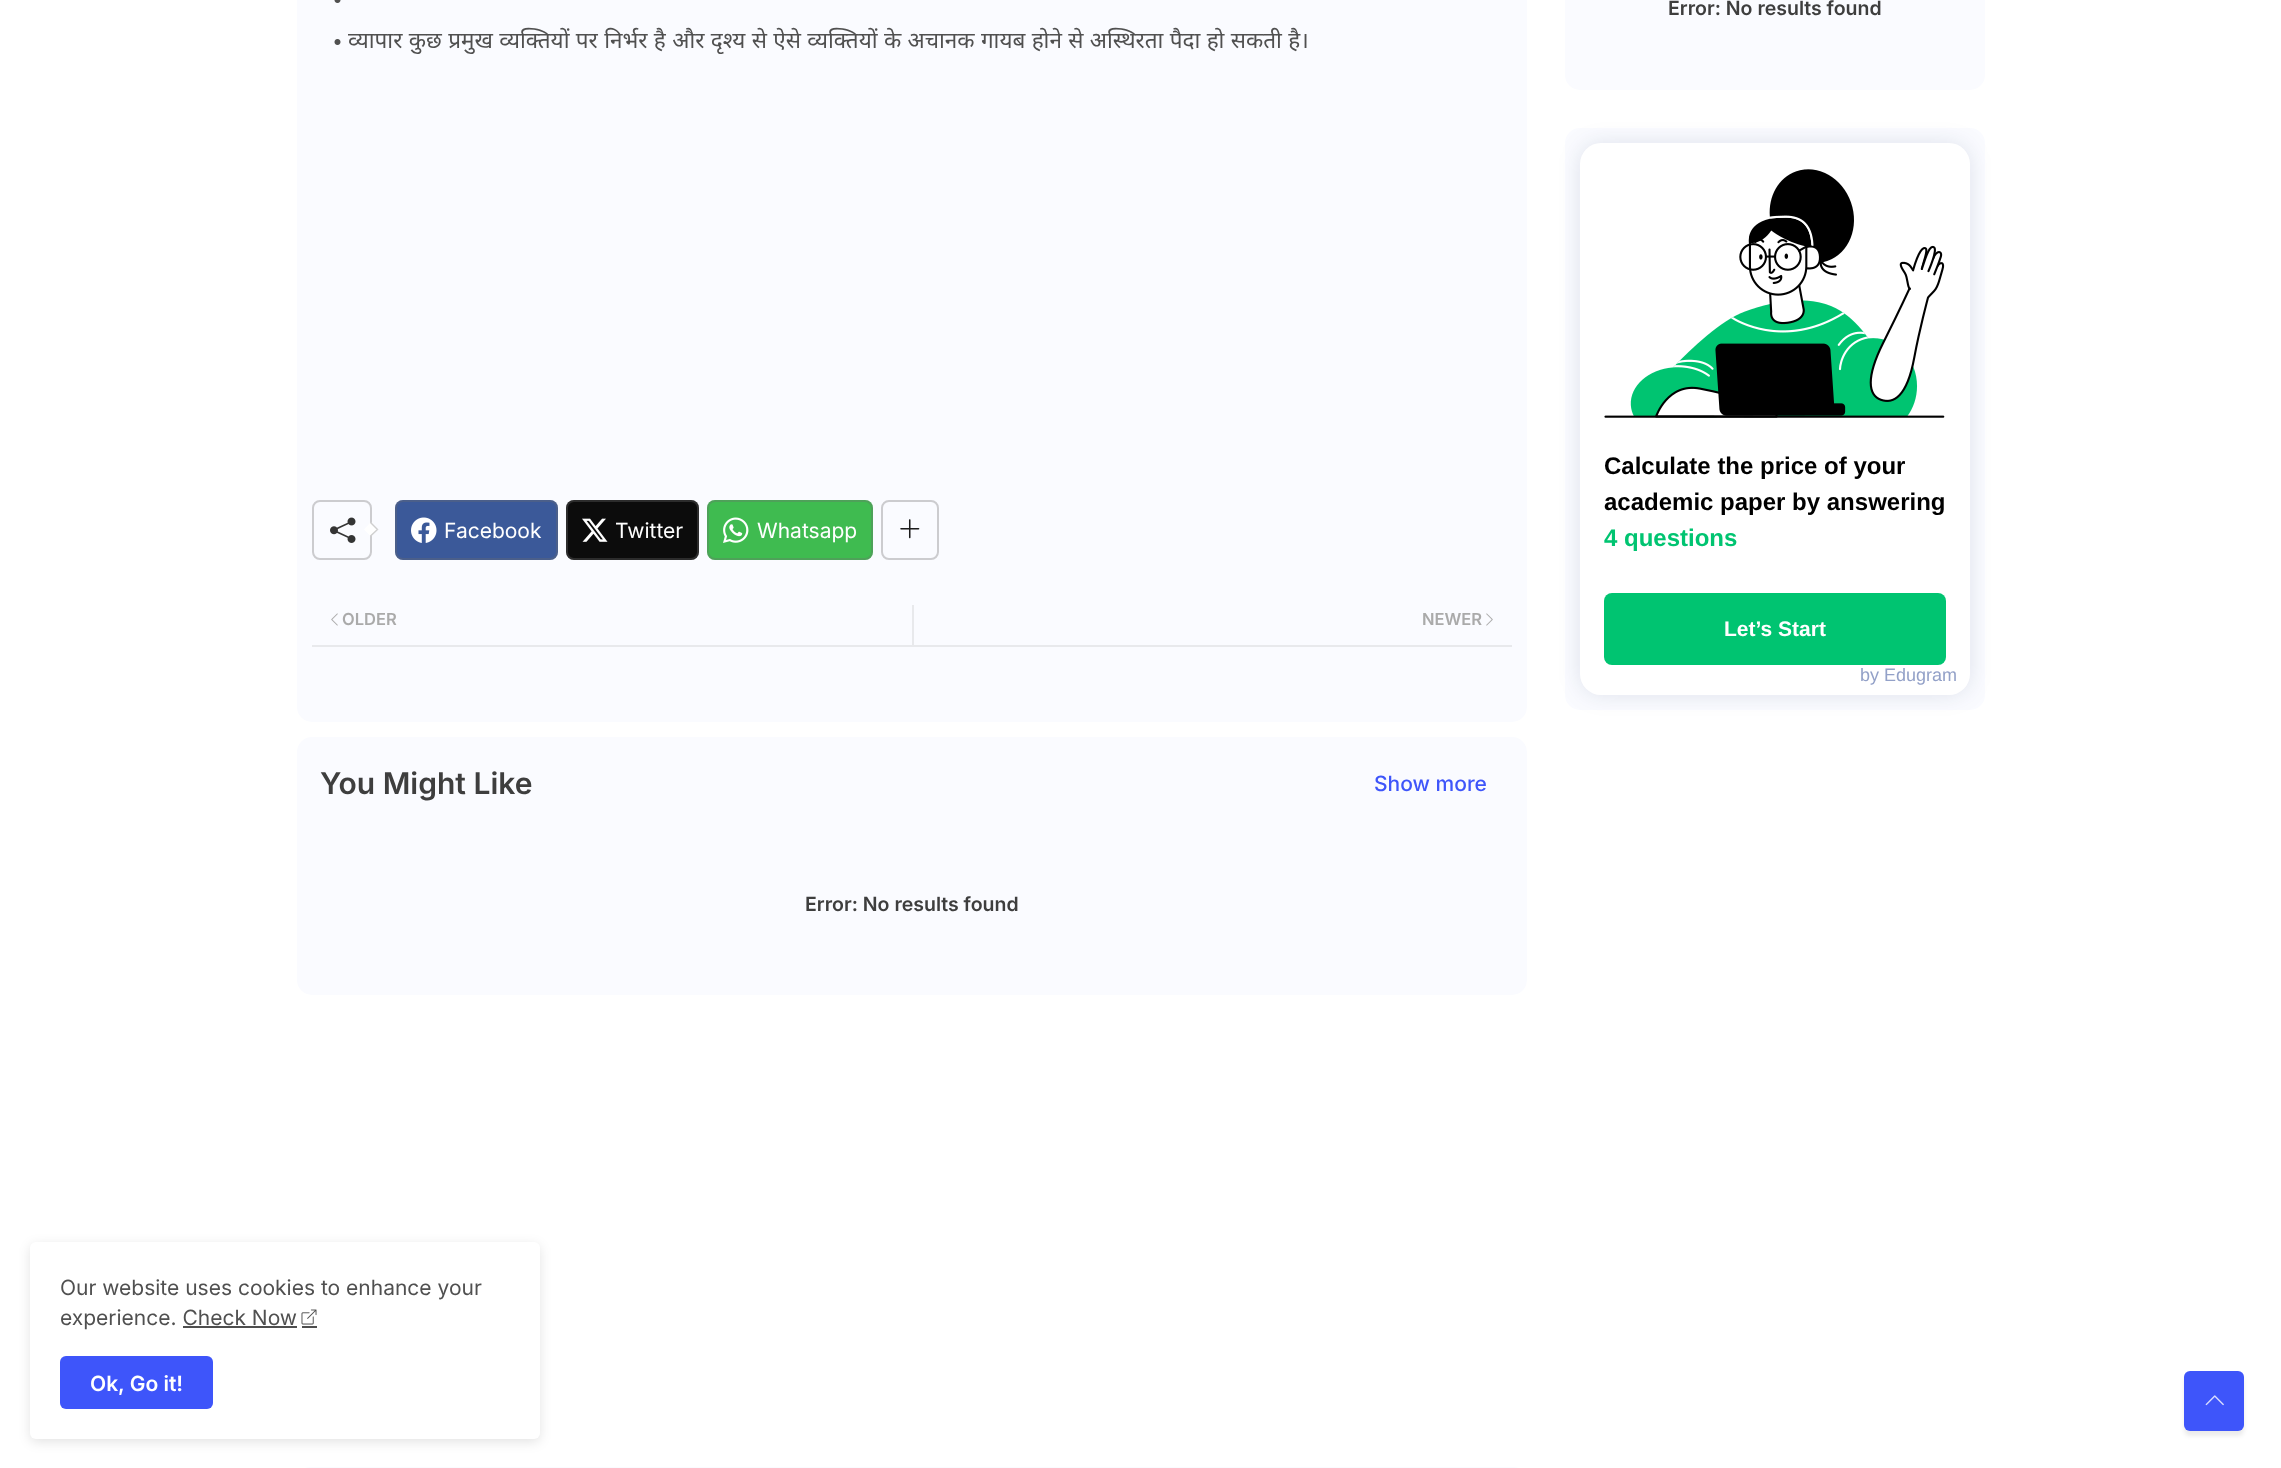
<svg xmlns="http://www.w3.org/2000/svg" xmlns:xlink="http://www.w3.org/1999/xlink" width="2281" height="1468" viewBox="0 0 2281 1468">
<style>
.cls-1{font:22.5px Noto Sans;fill:#505050}
.cls-2{font:21px Inter;fill:#ffffff}
.cls-3{font:600 16.5px Inter;fill:#aaaaaa}
.cls-4{font:600 30px Inter;fill:#3e3e3e}
.cls-5{font:500 21px Inter;fill:#3e55fa}
.cls-6{font:600 19.5px Inter;fill:#3e3e3e}
.cls-7{font:bold 24px Liberation Sans;fill:#000000}
.cls-8{font:bold 24px Liberation Sans;fill:#00c471}
.cls-9{font:bold 21px Liberation Sans;fill:#ffffff}
.cls-10{font:18px Liberation Sans;fill:#93a1c8}
.cls-11{font:21px Inter;fill:#505050}
.cls-12{font:600 21px Inter;fill:#ffffff}
</style>
<rect width="100%" height="100%" fill="#ffffff"/>
<rect fill="#fafbff" x="297" y="-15" width="1230" height="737" rx="15"/>
<image xlink:href="image0.png" x="334" y="0" width="7" height="3"/>
<image xlink:href="image1.png" x="334" y="39" width="7" height="6"/>
<rect fill="none" stroke="#cccccf" stroke-width="2" x="313" y="501" width="58" height="58" rx="7"/>
<image xlink:href="image2.png" x="330" y="517" width="26" height="26"/>
<path fill="#ffffff" d="M371 522L378.5 529.5L371 536.5L364 529.5Z"/>
<path fill="#6e6e6e" fill-opacity="0.33" d="M371 522L378.5 529.5H376.5L370 523Z"/>
<path fill="#6e6e6e" fill-opacity="0.33" d="M378.5 529.5L371 536.5L370 535.5L376.5 529.5Z"/>
<rect fill="#3b5999" x="395" y="500" width="163" height="60" rx="8"/>
<rect fill="none" stroke="#6e6e6e" stroke-opacity="0.33" stroke-width="2" x="396" y="501" width="161" height="58" rx="7"/>
<image xlink:href="image3.png" x="411" y="517" width="26" height="26"/>
<rect fill="#0c0c0c" x="566" y="500" width="133" height="60" rx="8"/>
<rect fill="none" stroke="#6e6e6e" stroke-opacity="0.33" stroke-width="2" x="567" y="501" width="131" height="58" rx="7"/>
<image xlink:href="image4.png" x="582" y="518" width="26" height="24"/>
<rect fill="#3fbb50" x="707" y="500" width="166" height="60" rx="8"/>
<rect fill="none" stroke="#6e6e6e" stroke-opacity="0.33" stroke-width="2" x="708" y="501" width="164" height="58" rx="7"/>
<image xlink:href="image5.png" x="723" y="517" width="26" height="26"/>
<rect fill="none" stroke="#cccccf" stroke-width="2" x="882" y="501" width="56" height="58" rx="7"/>
<image xlink:href="image6.png" x="900" y="519" width="20" height="20"/>
<rect fill="#e8e9ec" x="312" y="645" width="1200" height="2"/>
<image xlink:href="image7.png" x="331" y="613" width="7" height="13"/>
<rect fill="#e8e9ec" x="912" y="605" width="2" height="40"/>
<image xlink:href="image8.png" x="1486" y="613" width="7" height="13"/>
<rect fill="#fafbff" x="297" y="737" width="1230" height="258" rx="15"/>
<rect fill="#fafbff" x="297" y="1467" width="1230" height="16" rx="15"/>
<rect fill="#fafbff" x="1565" y="-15" width="420" height="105" rx="15"/>
<rect fill="#fafbff" x="1565" y="128" width="420" height="582" rx="15"/>
<rect fill="#0d1d4a" fill-opacity="0.11" filter="blur(11px)" x="1580" y="143" width="390" height="552" rx="21"/>
<rect fill="#ffffff" x="1580" y="143" width="390" height="552" rx="21"/>
<image xlink:href="image9.png" x="1604" y="169" width="341" height="249"/>
<rect fill="#00c471" x="1604" y="593" width="342" height="72" rx="8"/>
<rect fill="#000000" fill-opacity="0.11" filter="blur(6px)" x="30" y="1245" width="510" height="197" rx="6"/>
<rect fill="#ffffff" x="30" y="1242" width="510" height="197" rx="6"/>
<image xlink:href="image10.png" x="301" y="1309" width="16" height="16"/>
<rect fill="#4e4e4e" x="302" y="1326" width="15" height="2"/>
<rect fill="#3e55fa" x="60" y="1356" width="153" height="53" rx="6"/>
<rect fill="#000000" fill-opacity="0.08" filter="blur(2px)" x="2184" y="1376" width="60" height="60" rx="6"/>
<rect fill="#3e55fa" x="2184" y="1371" width="60" height="60" rx="6"/>
<image xlink:href="image11.png" x="2205" y="1395" width="19" height="11"/>
<text class="cls-1" x="348" y="48" word-spacing="0.5">व्यापार कुछ प्रमुख व्यक्तियों पर निर्भर है और दृश्य से ऐसे व्यक्तियों के अचानक गायब होने से अस्थिरता पैदा हो सकती है।</text>
<text class="cls-2" x="444" y="538">Facebook</text>
<text class="cls-2" x="615" y="538">Twitter</text>
<text class="cls-2" x="757" y="538">Whatsapp</text>
<text class="cls-3" x="342" y="625">OLDER</text>
<text class="cls-3" x="1422" y="625">NEWER</text>
<text class="cls-4" x="320" y="794">You Might Like</text>
<text class="cls-5" x="1374" y="791">Show more</text>
<text class="cls-6" x="805" y="911">Error: No results found</text>
<text class="cls-6" x="1668" y="15">Error: No results found</text>
<text class="cls-7"><tspan x="1604" y="474">Calculate the price of your</tspan><tspan x="1604" y="510">academic paper by answering</tspan></text>
<text class="cls-8" x="1604" y="546">4 questions</text>
<text class="cls-9" x="1724" y="636">Let’s Start</text>
<text class="cls-10" x="1860" y="681">by Edugram</text>
<text class="cls-11"><tspan x="60" y="1295">Our website uses cookies to enhance your</tspan><tspan x="60" y="1325">experience. Check Now</tspan></text>
<rect fill="#4e4e4e" x="183" y="1326" width="114" height="2"/>
<text class="cls-12" x="90" y="1391">Ok, Go it!</text>
</svg>
